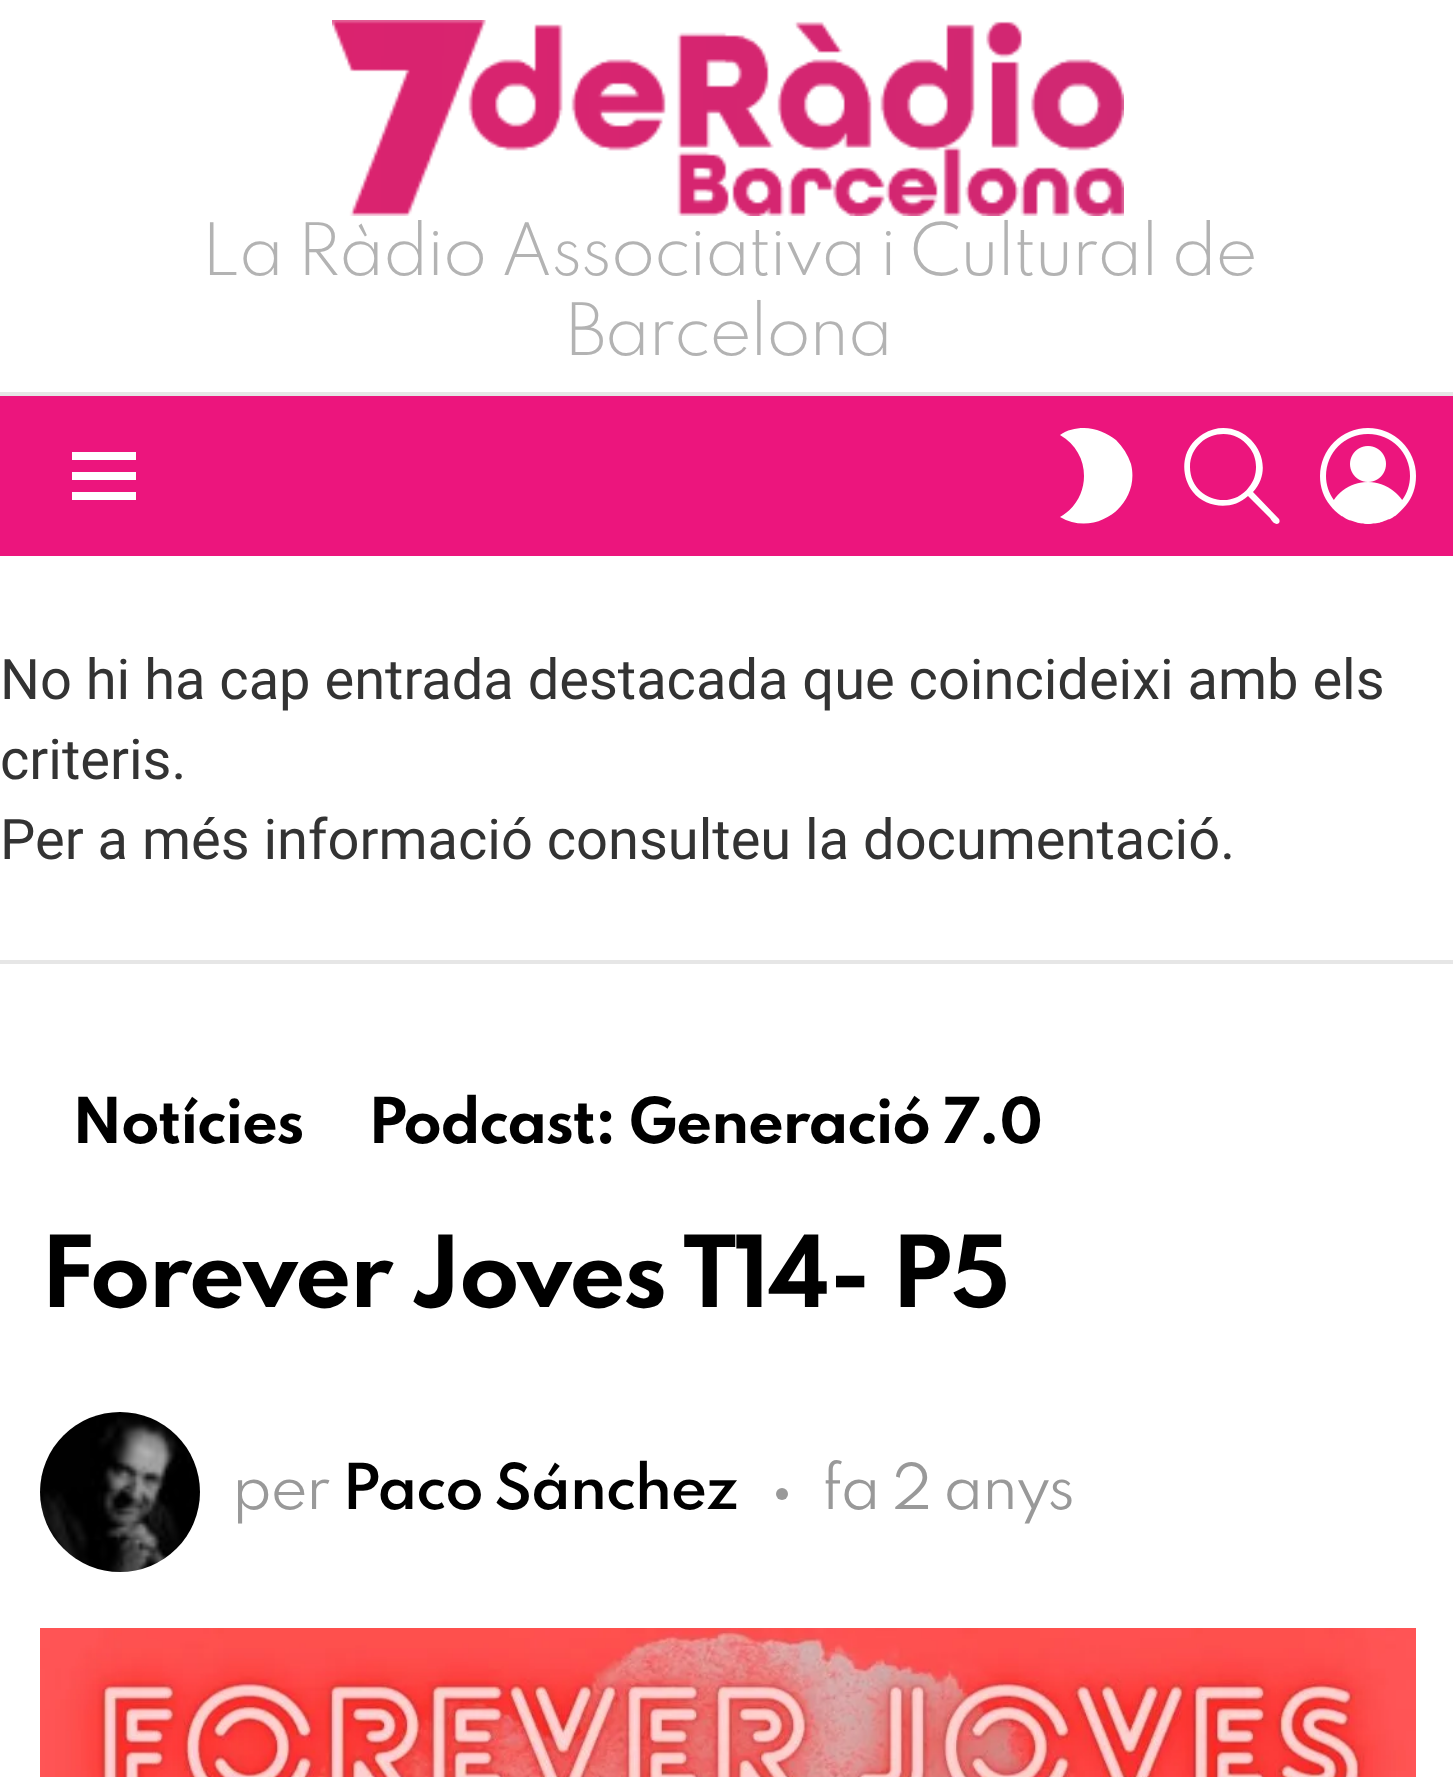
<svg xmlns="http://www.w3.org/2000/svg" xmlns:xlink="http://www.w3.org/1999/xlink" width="1453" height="1777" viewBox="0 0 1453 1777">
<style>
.cls-1{font:300 64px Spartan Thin;letter-spacing:-1.9px;fill:#b3b3b3}
.cls-2{font:56px Roboto;fill:#333333}
.cls-3{font:bold 56px Spartan Thin;letter-spacing:-1.7px;fill:#000000}
.cls-4{font:bold 88px Spartan Thin;letter-spacing:-2.6px;fill:#000000}
.cls-5{font:56px Spartan Thin;letter-spacing:-1.7px;fill:#999999}
.cls-6{font:600 56px Spartan Thin;letter-spacing:-1.7px;fill:#000000}
</style>
<rect width="100%" height="100%" fill="#ffffff"/>
<image xlink:href="image0.png" x="332" y="20" width="792" height="196"/>
<rect fill="#e6e6e6" x="0" y="392" width="1453" height="4"/>
<rect fill="#ec157d" x="0" y="396" width="1453" height="160"/>
<path fill="#ffffff" d="M72 452H136V460H72ZM72 472H136V480H72ZM72 492H136V500H72Z"/>
<path fill="#ffffff" d="M1084 428C1075 428 1067 430 1060 435C1092 453 1092 499 1060 517C1096 538 1141 505 1131 464C1128 455 1123 447 1116 440C1107 433 1096 428 1084 428Z"/>
<path fill="#ffffff" d="M1279 519L1253 492C1282 460 1241 411 1203 434C1195 439 1189 446 1186 455C1182 468 1185 482 1193 492C1206 508 1232 511 1248 496L1270 518C1271 520 1274 524 1277 524C1280 523 1280 521 1279 519ZM1190 467C1190 435 1231 422 1249 447C1254 453 1256 460 1256 467C1256 474 1254 481 1249 487C1231 512 1190 499 1190 467Z"/>
<image xlink:href="image1.png" x="1320" y="428" width="96" height="96"/>
<rect fill="#e6e6e6" x="0" y="960" width="1453" height="4"/>
<image xlink:href="image2.png" x="40" y="1412" width="160" height="160"/>
<circle fill="#999999" cx="782" cy="1494" r="6"/>
<image xlink:href="image3.png" x="40" y="1628" width="1376" height="149"/>
<text class="cls-1" x="201" y="275">La Ràdio Associativa i Cultural de</text>
<text class="cls-1" x="565" y="355">Barcelona</text>
<text class="cls-2"><tspan x="0" y="699">No hi ha cap entrada destacada que coincideixi amb els</tspan><tspan x="0" y="779">criteris.</tspan><tspan x="0" y="859">Per a més informació consulteu la documentació.</tspan></text>
<text class="cls-3" x="72" y="1143">Notícies</text>
<text class="cls-3" x="368" y="1143">Podcast: Generació 7.0</text>
<text class="cls-4" x="40" y="1307">Forever Joves T14- P5</text>
<text class="cls-5" x="232" y="1509">per</text>
<text class="cls-6" x="342" y="1509">Paco Sánchez</text>
<text class="cls-5" x="822" y="1509">fa 2 anys</text>
</svg>
